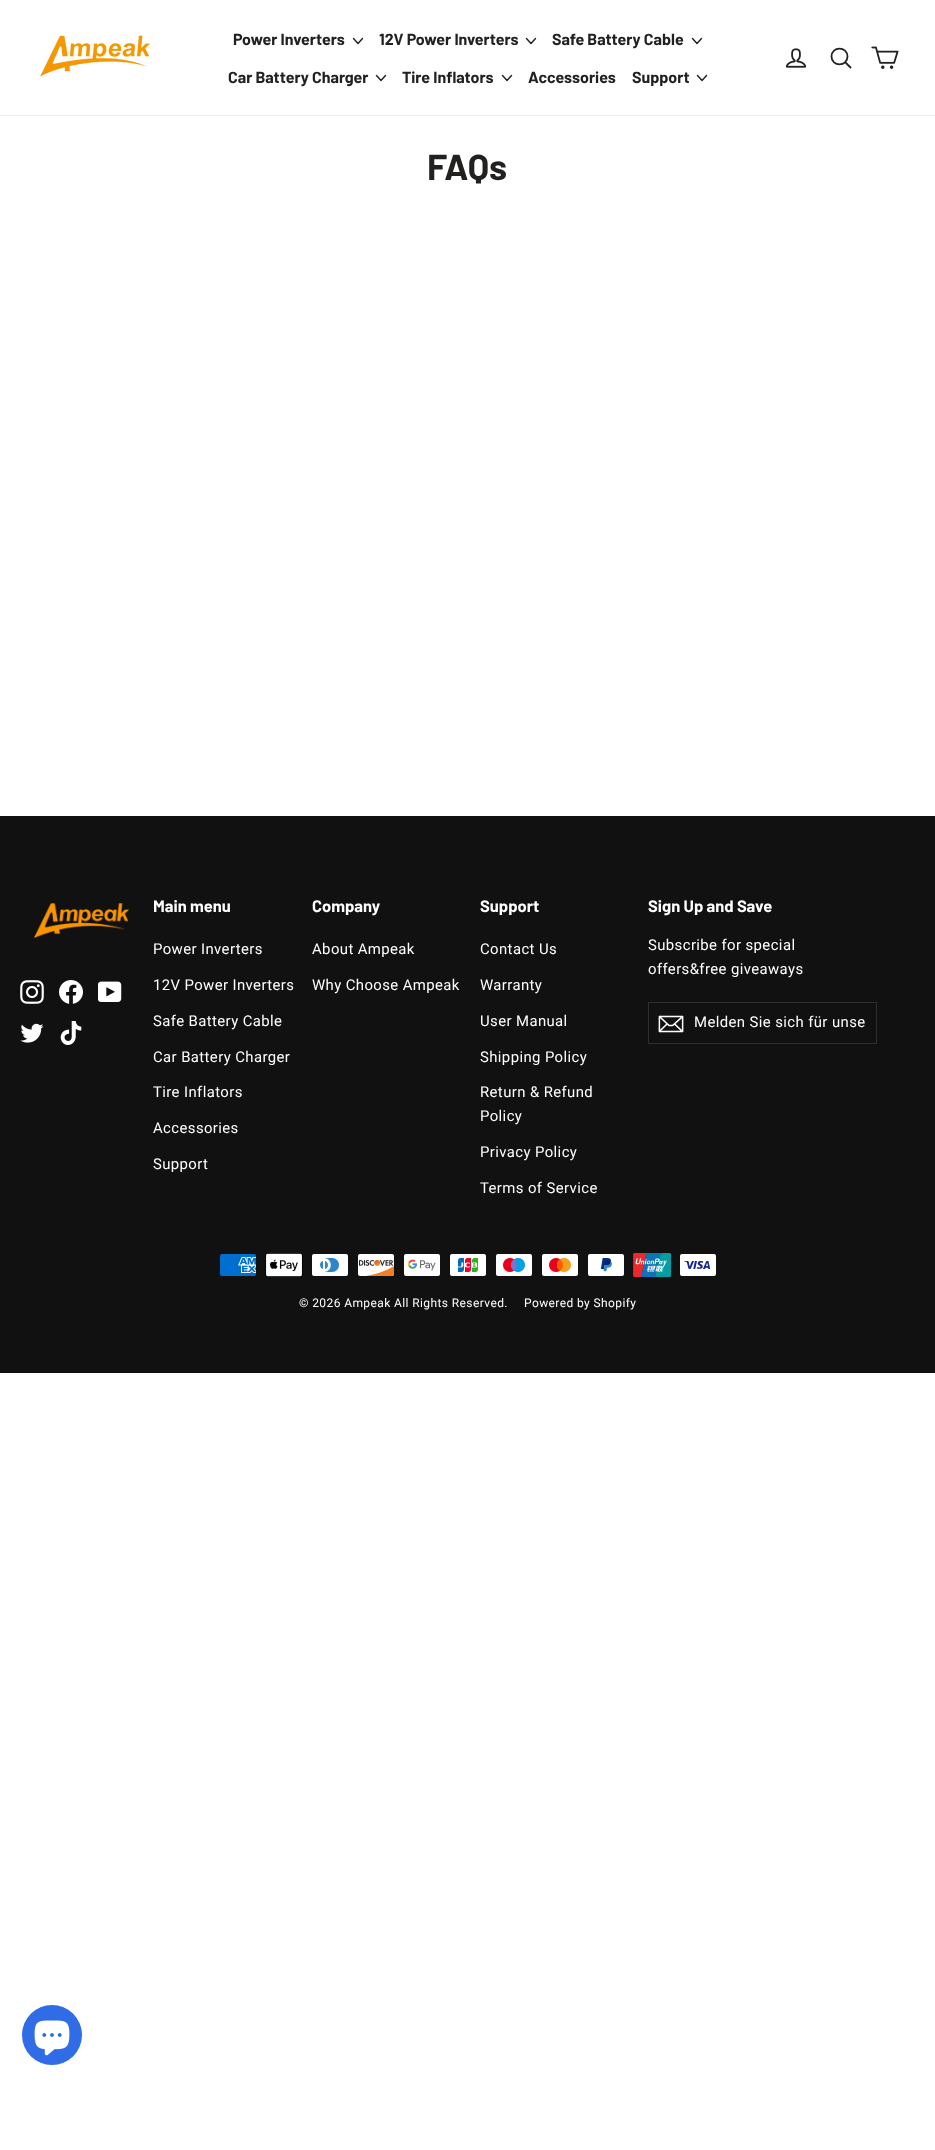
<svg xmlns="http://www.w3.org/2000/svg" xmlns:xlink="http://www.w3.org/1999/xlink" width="935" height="2150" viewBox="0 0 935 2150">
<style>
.cls-1{font:bold 16px Barlow;fill:#23211f}
.cls-2{font:bold 36px Barlow;fill:#23211f}
.cls-3{font:bold 16.5px Barlow;fill:#ffffff}
.cls-4{font:14.9px Roboto;letter-spacing:0.4px;fill:#ffffff}
.cls-5{font:12px Roboto;letter-spacing:0.4px;fill:#ffffff}
</style>
<rect width="100%" height="100%" fill="#ffffff"/>
<rect fill="#eeeeee" x="0" y="115" width="935" height="1"/>
<image xlink:href="image0.png" x="40" y="35" width="110" height="42"/>
<path fill="none" stroke="#23211f" stroke-width="1.4" stroke-linecap="round" stroke-linejoin="round" d="M353.5 38.5L358 43.5L362.5 38.5"/>
<path fill="none" stroke="#23211f" stroke-width="1.4" stroke-linecap="round" stroke-linejoin="round" d="M526.5 38.5L531 43.5L535.5 38.5"/>
<path fill="none" stroke="#23211f" stroke-width="1.4" stroke-linecap="round" stroke-linejoin="round" d="M692.5 38.5L697 43.5L701.5 38.5"/>
<path fill="none" stroke="#23211f" stroke-width="1.4" stroke-linecap="round" stroke-linejoin="round" d="M376.5 75.5L381 80.5L385.5 75.5"/>
<path fill="none" stroke="#23211f" stroke-width="1.4" stroke-linecap="round" stroke-linejoin="round" d="M502.5 75.5L507 80.5L511.5 75.5"/>
<path fill="none" stroke="#23211f" stroke-width="1.4" stroke-linecap="round" stroke-linejoin="round" d="M697.5 75.5L702 80.5L706.5 75.5"/>
<image xlink:href="image1.png" x="785" y="48" width="22" height="20"/>
<path fill="none" stroke="#23211f" stroke-width="1.8" stroke-linecap="round" stroke-linejoin="round" d="M847.5 56.5C847.5 67 831.5 67 831.5 56.5C831.5 46 847.5 46 847.5 56.5ZM850.5 67.5L845.5 62.5"/>
<image xlink:href="image2.png" x="871" y="46" width="28" height="23"/>
<rect fill="#111111" x="0" y="816" width="935" height="557"/>
<image xlink:href="image3.png" x="34" y="903" width="95" height="35"/>
<image xlink:href="image4.png" x="20" y="980" width="24" height="24"/>
<image xlink:href="image5.png" x="59" y="980" width="24" height="24"/>
<image xlink:href="image6.png" x="98" y="981" width="24" height="21"/>
<image xlink:href="image7.png" x="20" y="1023" width="24" height="20"/>
<image xlink:href="image8.png" x="60" y="1021" width="22" height="24"/>
<rect fill="none" stroke="#2e2e2e" x="648.5" y="1002.5" width="228" height="41"/>
<image xlink:href="image9.png" x="658" y="1015" width="26" height="18"/>
<image xlink:href="image10.png" x="220" y="1254" width="36" height="22"/>
<image xlink:href="image11.png" x="265" y="1253" width="38" height="24"/>
<image xlink:href="image12.png" x="312" y="1254" width="36" height="22"/>
<image xlink:href="image13.png" x="358" y="1254" width="36" height="22"/>
<image xlink:href="image14.png" x="404" y="1254" width="36" height="22"/>
<image xlink:href="image15.png" x="450" y="1254" width="36" height="22"/>
<image xlink:href="image16.png" x="496" y="1254" width="36" height="22"/>
<image xlink:href="image17.png" x="542" y="1254" width="36" height="22"/>
<image xlink:href="image18.png" x="588" y="1254" width="36" height="22"/>
<image xlink:href="image19.png" x="633" y="1253" width="38" height="24"/>
<image xlink:href="image20.png" x="680" y="1254" width="36" height="22"/>
<circle fill="#2f6ce5" cx="52" cy="2035" r="30"/>
<image xlink:href="image21.png" x="34" y="2020" width="36" height="36"/>
<text class="cls-1" x="233" y="45">Power Inverters</text>
<text class="cls-1" x="379" y="45">12V Power Inverters</text>
<text class="cls-1" x="552" y="45">Safe Battery Cable</text>
<text class="cls-1" x="228" y="83">Car Battery Charger</text>
<text class="cls-1" x="402" y="83">Tire Inflators</text>
<text class="cls-1" x="528" y="83">Accessories</text>
<text class="cls-1" x="632" y="83">Support</text>
<text class="cls-2" x="427" y="180">FAQs</text>
<text class="cls-3" x="153" y="912">Main menu</text>
<text class="cls-4" x="153" y="954">Power Inverters</text>
<text class="cls-4" x="153" y="990">12V Power Inverters</text>
<text class="cls-4" x="153" y="1026">Safe Battery Cable</text>
<text class="cls-4" x="153" y="1062">Car Battery Charger</text>
<text class="cls-4" x="153" y="1097">Tire Inflators</text>
<text class="cls-4" x="153" y="1133">Accessories</text>
<text class="cls-4" x="153" y="1169">Support</text>
<text class="cls-3" x="312" y="912">Company</text>
<text class="cls-4" x="312" y="954">About Ampeak</text>
<text class="cls-4" x="312" y="990">Why Choose Ampeak</text>
<text class="cls-3" x="480" y="912">Support</text>
<text class="cls-4" x="480" y="954">Contact Us</text>
<text class="cls-4" x="480" y="990">Warranty</text>
<text class="cls-4" x="480" y="1026">User Manual</text>
<text class="cls-4" x="480" y="1062">Shipping Policy</text>
<text class="cls-4"><tspan x="480" y="1097">Return &amp; Refund</tspan><tspan x="480" y="1121">Policy</tspan></text>
<text class="cls-4" x="480" y="1157">Privacy Policy</text>
<text class="cls-4" x="480" y="1193">Terms of Service</text>
<text class="cls-3" x="648" y="912">Sign Up and Save</text>
<text class="cls-4"><tspan x="648" y="950">Subscribe for special</tspan><tspan x="648" y="974">offers&amp;free giveaways</tspan></text>
<text class="cls-4" x="694" y="1027">Melden Sie sich für unse</text>
<text class="cls-5" x="299" y="1307">© 2026 Ampeak All Rights Reserved.</text>
<text class="cls-5" x="524" y="1307">Powered by Shopify</text>
</svg>
